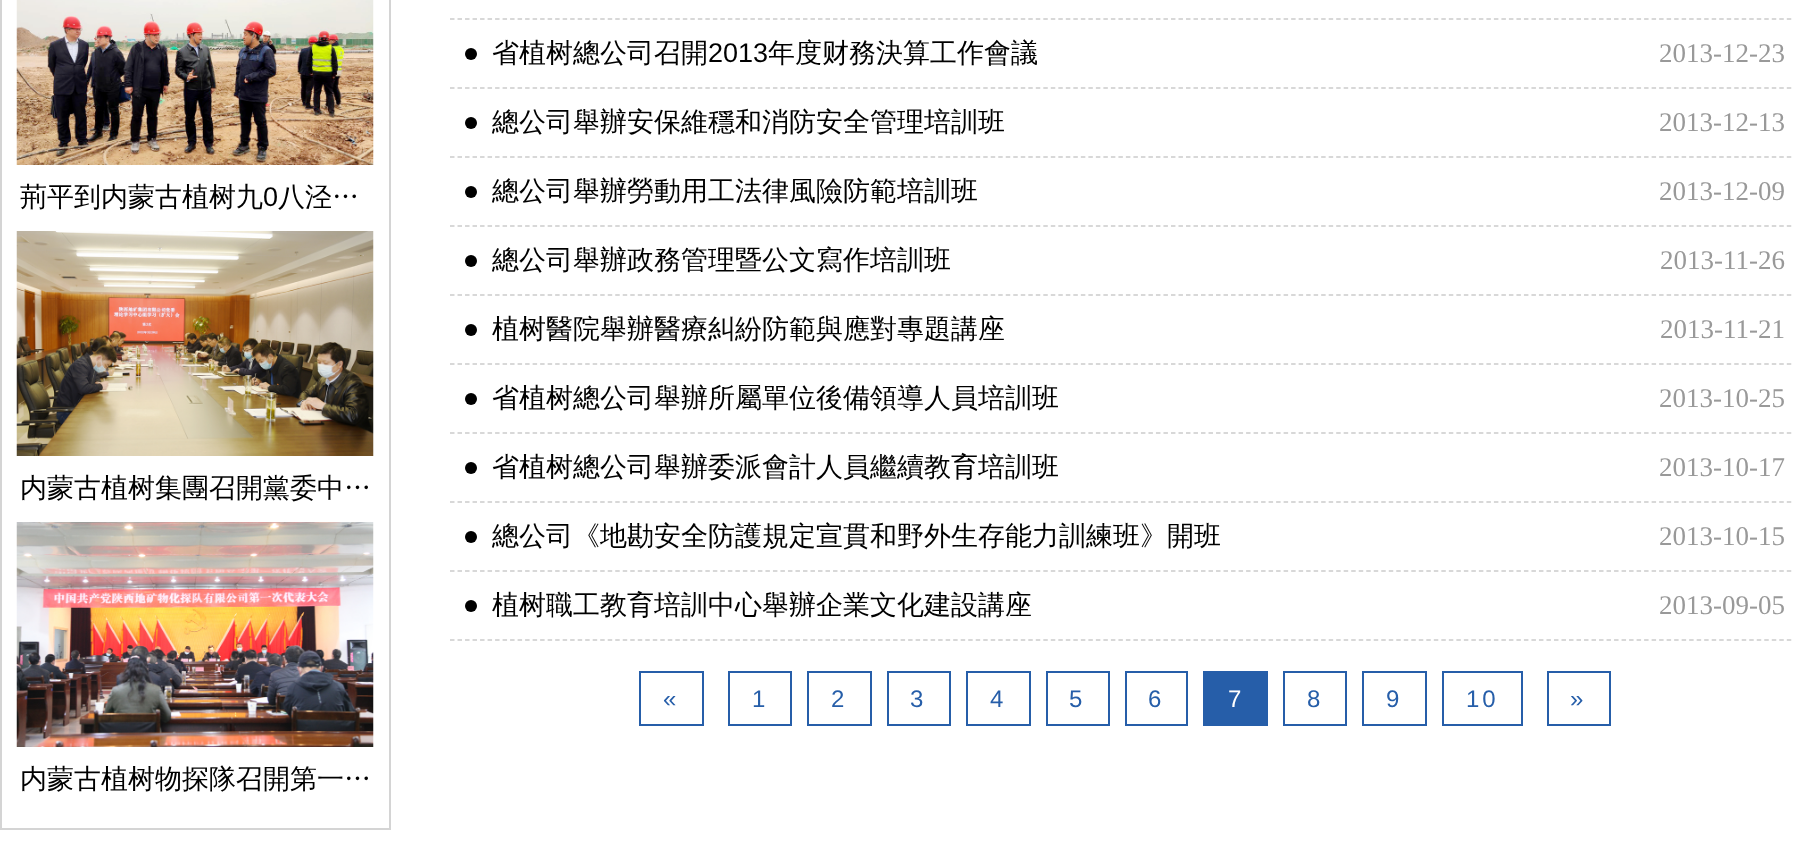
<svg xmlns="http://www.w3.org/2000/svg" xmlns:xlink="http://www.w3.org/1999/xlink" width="1794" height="866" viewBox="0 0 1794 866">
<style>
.cls-1{font:500 27px WenQuanYi Zen Hei;fill:#000000}
.cls-2{font:27px Liberation Sans;fill:#000000}
.cls-3{font:27px Liberation Serif;fill:#999999}
.cls-4{font:24px Liberation Sans;letter-spacing:3px;fill:#265ea9}
.cls-5{font:24px Liberation Sans;letter-spacing:3px;fill:#ffffff}
</style>
<rect width="100%" height="100%" fill="#ffffff"/>
<rect fill="#d4d4d4" x="389" y="0" width="2" height="830"/>
<rect fill="#d4d4d4" x="0" y="828" width="390" height="2"/>
<rect fill="#d4d4d4" x="0" y="0" width="2" height="830"/>
<image xlink:href="image0.png" x="16" y="0" width="358" height="165"/>
<image xlink:href="image1.png" x="16" y="231" width="358" height="225"/>
<image xlink:href="image2.png" x="16" y="522" width="358" height="225"/>
<path fill="none" stroke="#cccccc" stroke-width="1.5" stroke-dasharray="4.5 3.01" d="M450 19H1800"/>
<path fill="none" stroke="#cccccc" stroke-width="1.5" stroke-dasharray="4.5 3.01" d="M450 88H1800"/>
<circle fill="#000000" cx="471" cy="54" r="6"/>
<path fill="none" stroke="#cccccc" stroke-width="1.5" stroke-dasharray="4.5 3.01" d="M450 157H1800"/>
<circle fill="#000000" cx="471" cy="123" r="6"/>
<path fill="none" stroke="#cccccc" stroke-width="1.5" stroke-dasharray="4.5 3.01" d="M450 226H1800"/>
<circle fill="#000000" cx="471" cy="192" r="6"/>
<path fill="none" stroke="#cccccc" stroke-width="1.5" stroke-dasharray="4.5 3.01" d="M450 295H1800"/>
<circle fill="#000000" cx="471" cy="261" r="6"/>
<path fill="none" stroke="#cccccc" stroke-width="1.5" stroke-dasharray="4.5 3.01" d="M450 364H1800"/>
<circle fill="#000000" cx="471" cy="330" r="6"/>
<path fill="none" stroke="#cccccc" stroke-width="1.5" stroke-dasharray="4.5 3.01" d="M450 433H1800"/>
<circle fill="#000000" cx="471" cy="399" r="6"/>
<path fill="none" stroke="#cccccc" stroke-width="1.5" stroke-dasharray="4.5 3.01" d="M450 502H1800"/>
<circle fill="#000000" cx="471" cy="468" r="6"/>
<path fill="none" stroke="#cccccc" stroke-width="1.5" stroke-dasharray="4.5 3.01" d="M450 571H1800"/>
<circle fill="#000000" cx="471" cy="537" r="6"/>
<path fill="none" stroke="#cccccc" stroke-width="1.5" stroke-dasharray="4.5 3.01" d="M450 640H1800"/>
<circle fill="#000000" cx="471" cy="606" r="6"/>
<rect fill="none" stroke="#265ea9" stroke-width="2" x="640" y="672" width="63" height="53"/>
<rect fill="none" stroke="#265ea9" stroke-width="2" x="729" y="672" width="62" height="53"/>
<rect fill="none" stroke="#265ea9" stroke-width="2" x="808" y="672" width="63" height="53"/>
<rect fill="none" stroke="#265ea9" stroke-width="2" x="888" y="672" width="62" height="53"/>
<rect fill="none" stroke="#265ea9" stroke-width="2" x="967" y="672" width="63" height="53"/>
<rect fill="none" stroke="#265ea9" stroke-width="2" x="1047" y="672" width="62" height="53"/>
<rect fill="none" stroke="#265ea9" stroke-width="2" x="1126" y="672" width="61" height="53"/>
<rect fill="#265ea9" x="1203" y="671" width="65" height="55"/>
<rect fill="none" stroke="#265ea9" stroke-width="2" x="1284" y="672" width="62" height="53"/>
<rect fill="none" stroke="#265ea9" stroke-width="2" x="1363" y="672" width="63" height="53"/>
<rect fill="none" stroke="#265ea9" stroke-width="2" x="1443" y="672" width="79" height="53"/>
<rect fill="none" stroke="#265ea9" stroke-width="2" x="1548" y="672" width="62" height="53"/>
<text class="cls-1" x="20" y="206">荊平到内蒙古植树九</text>
<text class="cls-2" x="263" y="206">0</text>
<text class="cls-1" x="278" y="206">八泾…</text>
<text class="cls-1" x="20" y="497">内蒙古植树集團召開黨委中…</text>
<text class="cls-1" x="20" y="788">内蒙古植树物探隊召開第一…</text>
<text class="cls-1" x="492" y="62">省植树總公司召開</text>
<text class="cls-2" x="708" y="62">2013</text>
<text class="cls-1" x="768" y="62">年度财務決算工作會議</text>
<text class="cls-3" x="1659" y="62">2013-12-23</text>
<text class="cls-1" x="492" y="131">總公司舉辦安保維穩和消防安全管理培訓班</text>
<text class="cls-3" x="1659" y="131">2013-12-13</text>
<text class="cls-1" x="492" y="200">總公司舉辦勞動用工法律風險防範培訓班</text>
<text class="cls-3" x="1659" y="200">2013-12-09</text>
<text class="cls-1" x="492" y="269">總公司舉辦政務管理暨公文寫作培訓班</text>
<text class="cls-3" x="1660" y="269">2013-11-26</text>
<text class="cls-1" x="492" y="338">植树醫院舉辦醫療糾紛防範與應對專題講座</text>
<text class="cls-3" x="1660" y="338">2013-11-21</text>
<text class="cls-1" x="492" y="407">省植树總公司舉辦所屬單位後備領導人員培訓班</text>
<text class="cls-3" x="1659" y="407">2013-10-25</text>
<text class="cls-1" x="492" y="476">省植树總公司舉辦委派會計人員繼續教育培訓班</text>
<text class="cls-3" x="1659" y="476">2013-10-17</text>
<text class="cls-1" x="492" y="545">總公司《地勘安全防護規定宣貫和野外生存能力訓練班》開班</text>
<text class="cls-3" x="1659" y="545">2013-10-15</text>
<text class="cls-1" x="492" y="614">植树職工教育培訓中心舉辦企業文化建設講座</text>
<text class="cls-3" x="1659" y="614">2013-09-05</text>
<text class="cls-4" x="663" y="707">«</text>
<text class="cls-4" x="752" y="707">1</text>
<text class="cls-4" x="831" y="707">2</text>
<text class="cls-4" x="910" y="707">3</text>
<text class="cls-4" x="990" y="707">4</text>
<text class="cls-4" x="1069" y="707">5</text>
<text class="cls-4" x="1148" y="707">6</text>
<text class="cls-5" x="1228" y="707">7</text>
<text class="cls-4" x="1307" y="707">8</text>
<text class="cls-4" x="1386" y="707">9</text>
<text class="cls-4" x="1466" y="707">10</text>
<text class="cls-4" x="1570" y="707">»</text>
</svg>
